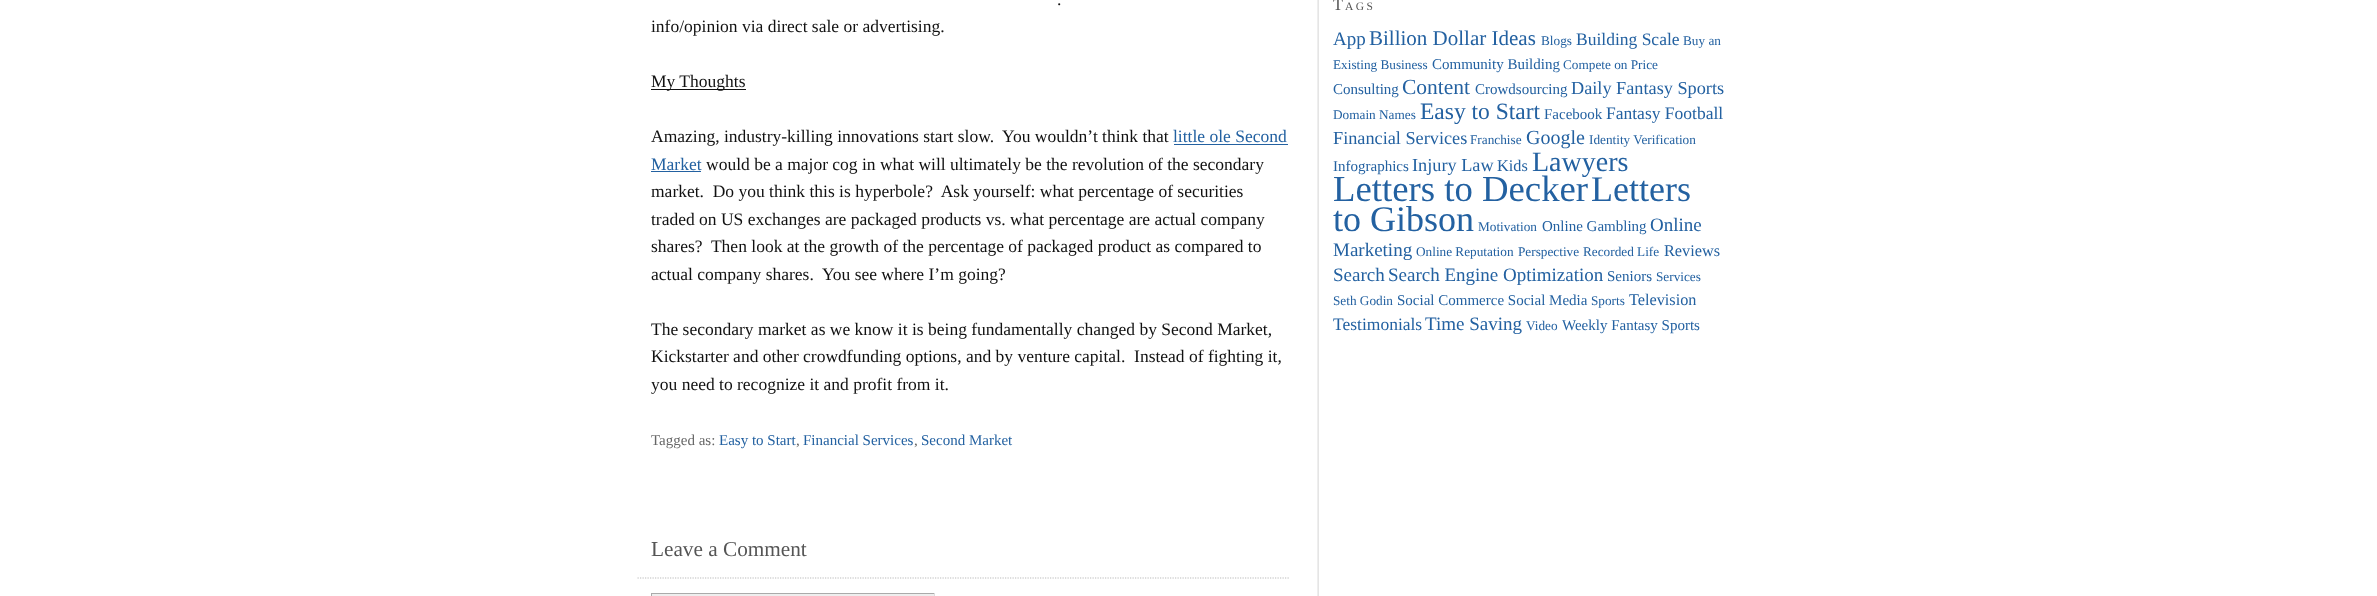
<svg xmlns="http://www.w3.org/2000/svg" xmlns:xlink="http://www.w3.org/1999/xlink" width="2377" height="596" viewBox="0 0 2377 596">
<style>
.cls-1{font:17.5px Liberation Serif;fill:#111111}
.cls-2{font:17.5px Liberation Serif;fill:#2361a1}
.cls-3{font:15px Liberation Serif;fill:#666666}
.cls-4{font:15px Liberation Serif;fill:#2361a1}
.cls-5{font:21.25px Liberation Serif;fill:#555555}
.cls-6{font:16.25px Liberation Serif;letter-spacing:2.5px;fill:#555555}
.cls-7{font:11.5px Liberation Serif;letter-spacing:2.5px;fill:#555555}
.cls-8{font:19px Liberation Serif;fill:#2361a1}
.cls-9{font:21px Liberation Serif;fill:#2361a1}
.cls-10{font:13.25px Liberation Serif;fill:#2361a1}
.cls-11{font:21.5px Liberation Serif;fill:#2361a1}
.cls-12{font:18.25px Liberation Serif;fill:#2361a1}
.cls-13{font:23.5px Liberation Serif;fill:#2361a1}
.cls-14{font:20px Liberation Serif;fill:#2361a1}
.cls-15{font:16.25px Liberation Serif;fill:#2361a1}
.cls-16{font:28px Liberation Serif;fill:#2361a1}
.cls-17{font:36.75px Liberation Serif;fill:#2361a1}
.cls-18{font:36px Liberation Serif;fill:#2361a1}
</style>
<rect width="100%" height="100%" fill="#ffffff"/>
<image xlink:href="image0.png" x="1317" y="0" width="2" height="596"/>
<rect fill="#111111" x="651" y="89" width="95" height="1"/>
<rect fill="#2361a1" x="1174" y="144" width="114" height="1"/>
<rect fill="#2361a1" x="651" y="171" width="50" height="1"/>
<path fill="none" stroke="#bbbbbb" stroke-width="1.2" stroke-dasharray="1.25 1.25" d="M637.5 578H1289"/>
<rect fill="#eeeeee" x="651" y="594" width="284" height="2"/>
<rect fill="#aaaaaa" x="651" y="593" width="284" height="1"/>
<rect fill="#dddddd" x="934" y="593" width="1" height="3"/>
<rect fill="#aaaaaa" x="651" y="593" width="1" height="3"/>
<text class="cls-1" x="1057" y="5">.</text>
<text class="cls-1" x="651" y="32">info/opinion via direct sale or advertising.</text>
<text class="cls-1" x="651" y="87">My Thoughts</text>
<text class="cls-1" xml:space="preserve" x="651" y="142">Amazing, industry-killing innovations start slow.  You wouldn’t think that</text>
<text class="cls-2" x="1173" y="142">little ole Second</text>
<text class="cls-2" x="651" y="170">Market</text>
<text class="cls-1" x="706" y="170">would be a major cog in what will ultimately be the revolution of the secondary</text>
<text class="cls-1" xml:space="preserve"><tspan x="651" y="197">market.  Do you think this is hyperbole?  Ask yourself: what percentage of securities</tspan><tspan x="651" y="225">traded on US exchanges are packaged products vs. what percentage are actual company</tspan><tspan x="651" y="252">shares?  Then look at the growth of the percentage of packaged product as compared to</tspan><tspan x="651" y="280">actual company shares.  You see where I’m going?</tspan></text>
<text class="cls-1" xml:space="preserve"><tspan x="651" y="335">The secondary market as we know it is being fundamentally changed by Second Market,</tspan><tspan x="651" y="362">Kickstarter and other crowdfunding options, and by venture capital.  Instead of fighting it,</tspan><tspan x="651" y="390">you need to recognize it and profit from it.</tspan></text>
<text class="cls-3" x="651" y="445">Tagged as:</text>
<text class="cls-4" x="719" y="445">Easy to Start</text>
<text class="cls-3" x="796" y="445">,</text>
<text class="cls-4" x="803" y="445">Financial Services</text>
<text class="cls-3" x="914" y="445">,</text>
<text class="cls-4" x="921" y="445">Second Market</text>
<text class="cls-5" x="651" y="556">Leave a Comment</text>
<text class="cls-6" x="1333" y="10">T</text>
<text class="cls-7" x="1345" y="10">AGS</text>
<text class="cls-8" x="1333" y="45">App</text>
<text class="cls-9" x="1369" y="45">Billion Dollar Ideas</text>
<text class="cls-10" x="1541" y="45">Blogs</text>
<text class="cls-2" x="1576" y="45">Building Scale</text>
<text class="cls-10" x="1683" y="45">Buy an</text>
<text class="cls-10" x="1333" y="69">Existing Business</text>
<text class="cls-4" x="1432" y="69">Community Building</text>
<text class="cls-10" x="1563" y="69">Compete on Price</text>
<text class="cls-4" x="1333" y="94">Consulting</text>
<text class="cls-11" x="1402" y="94">Content</text>
<text class="cls-4" x="1475" y="94">Crowdsourcing</text>
<text class="cls-12" x="1571" y="94">Daily Fantasy Sports</text>
<text class="cls-10" x="1333" y="119">Domain Names</text>
<text class="cls-13" x="1420" y="119">Easy to Start</text>
<text class="cls-4" x="1544" y="119">Facebook</text>
<text class="cls-2" x="1606" y="119">Fantasy Football</text>
<text class="cls-12" x="1333" y="144">Financial Services</text>
<text class="cls-10" x="1470" y="144">Franchise</text>
<text class="cls-14" x="1526" y="144">Google</text>
<text class="cls-10" x="1589" y="144">Identity Verification</text>
<text class="cls-4" x="1333" y="171">Infographics</text>
<text class="cls-12" x="1412" y="171">Injury Law</text>
<text class="cls-15" x="1497" y="171">Kids</text>
<text class="cls-16" x="1532" y="171">Lawyers</text>
<text class="cls-17" x="1333" y="201">Letters to Decker</text>
<text class="cls-18" x="1591" y="201">Letters</text>
<text class="cls-18" x="1333" y="231">to Gibson</text>
<text class="cls-10" x="1478" y="231">Motivation</text>
<text class="cls-4" x="1542" y="231">Online Gambling</text>
<text class="cls-8" x="1650" y="231">Online</text>
<text class="cls-8" x="1333" y="256">Marketing</text>
<text class="cls-10" x="1416" y="256">Online Reputation</text>
<text class="cls-10" x="1518" y="256">Perspective</text>
<text class="cls-10" x="1583" y="256">Recorded Life</text>
<text class="cls-15" x="1664" y="256">Reviews</text>
<text class="cls-8" x="1333" y="281">Search</text>
<text class="cls-8" x="1388" y="281">Search Engine Optimization</text>
<text class="cls-4" x="1607" y="281">Seniors</text>
<text class="cls-10" x="1656" y="281">Services</text>
<text class="cls-10" x="1333" y="305">Seth Godin</text>
<text class="cls-4" x="1397" y="305">Social Commerce Social Media</text>
<text class="cls-10" x="1591" y="305">Sports</text>
<text class="cls-15" x="1629" y="305">Television</text>
<text class="cls-2" x="1333" y="330">Testimonials</text>
<text class="cls-8" x="1425" y="330">Time Saving</text>
<text class="cls-10" x="1526" y="330">Video</text>
<text class="cls-4" x="1562" y="330">Weekly Fantasy Sports</text>
</svg>
